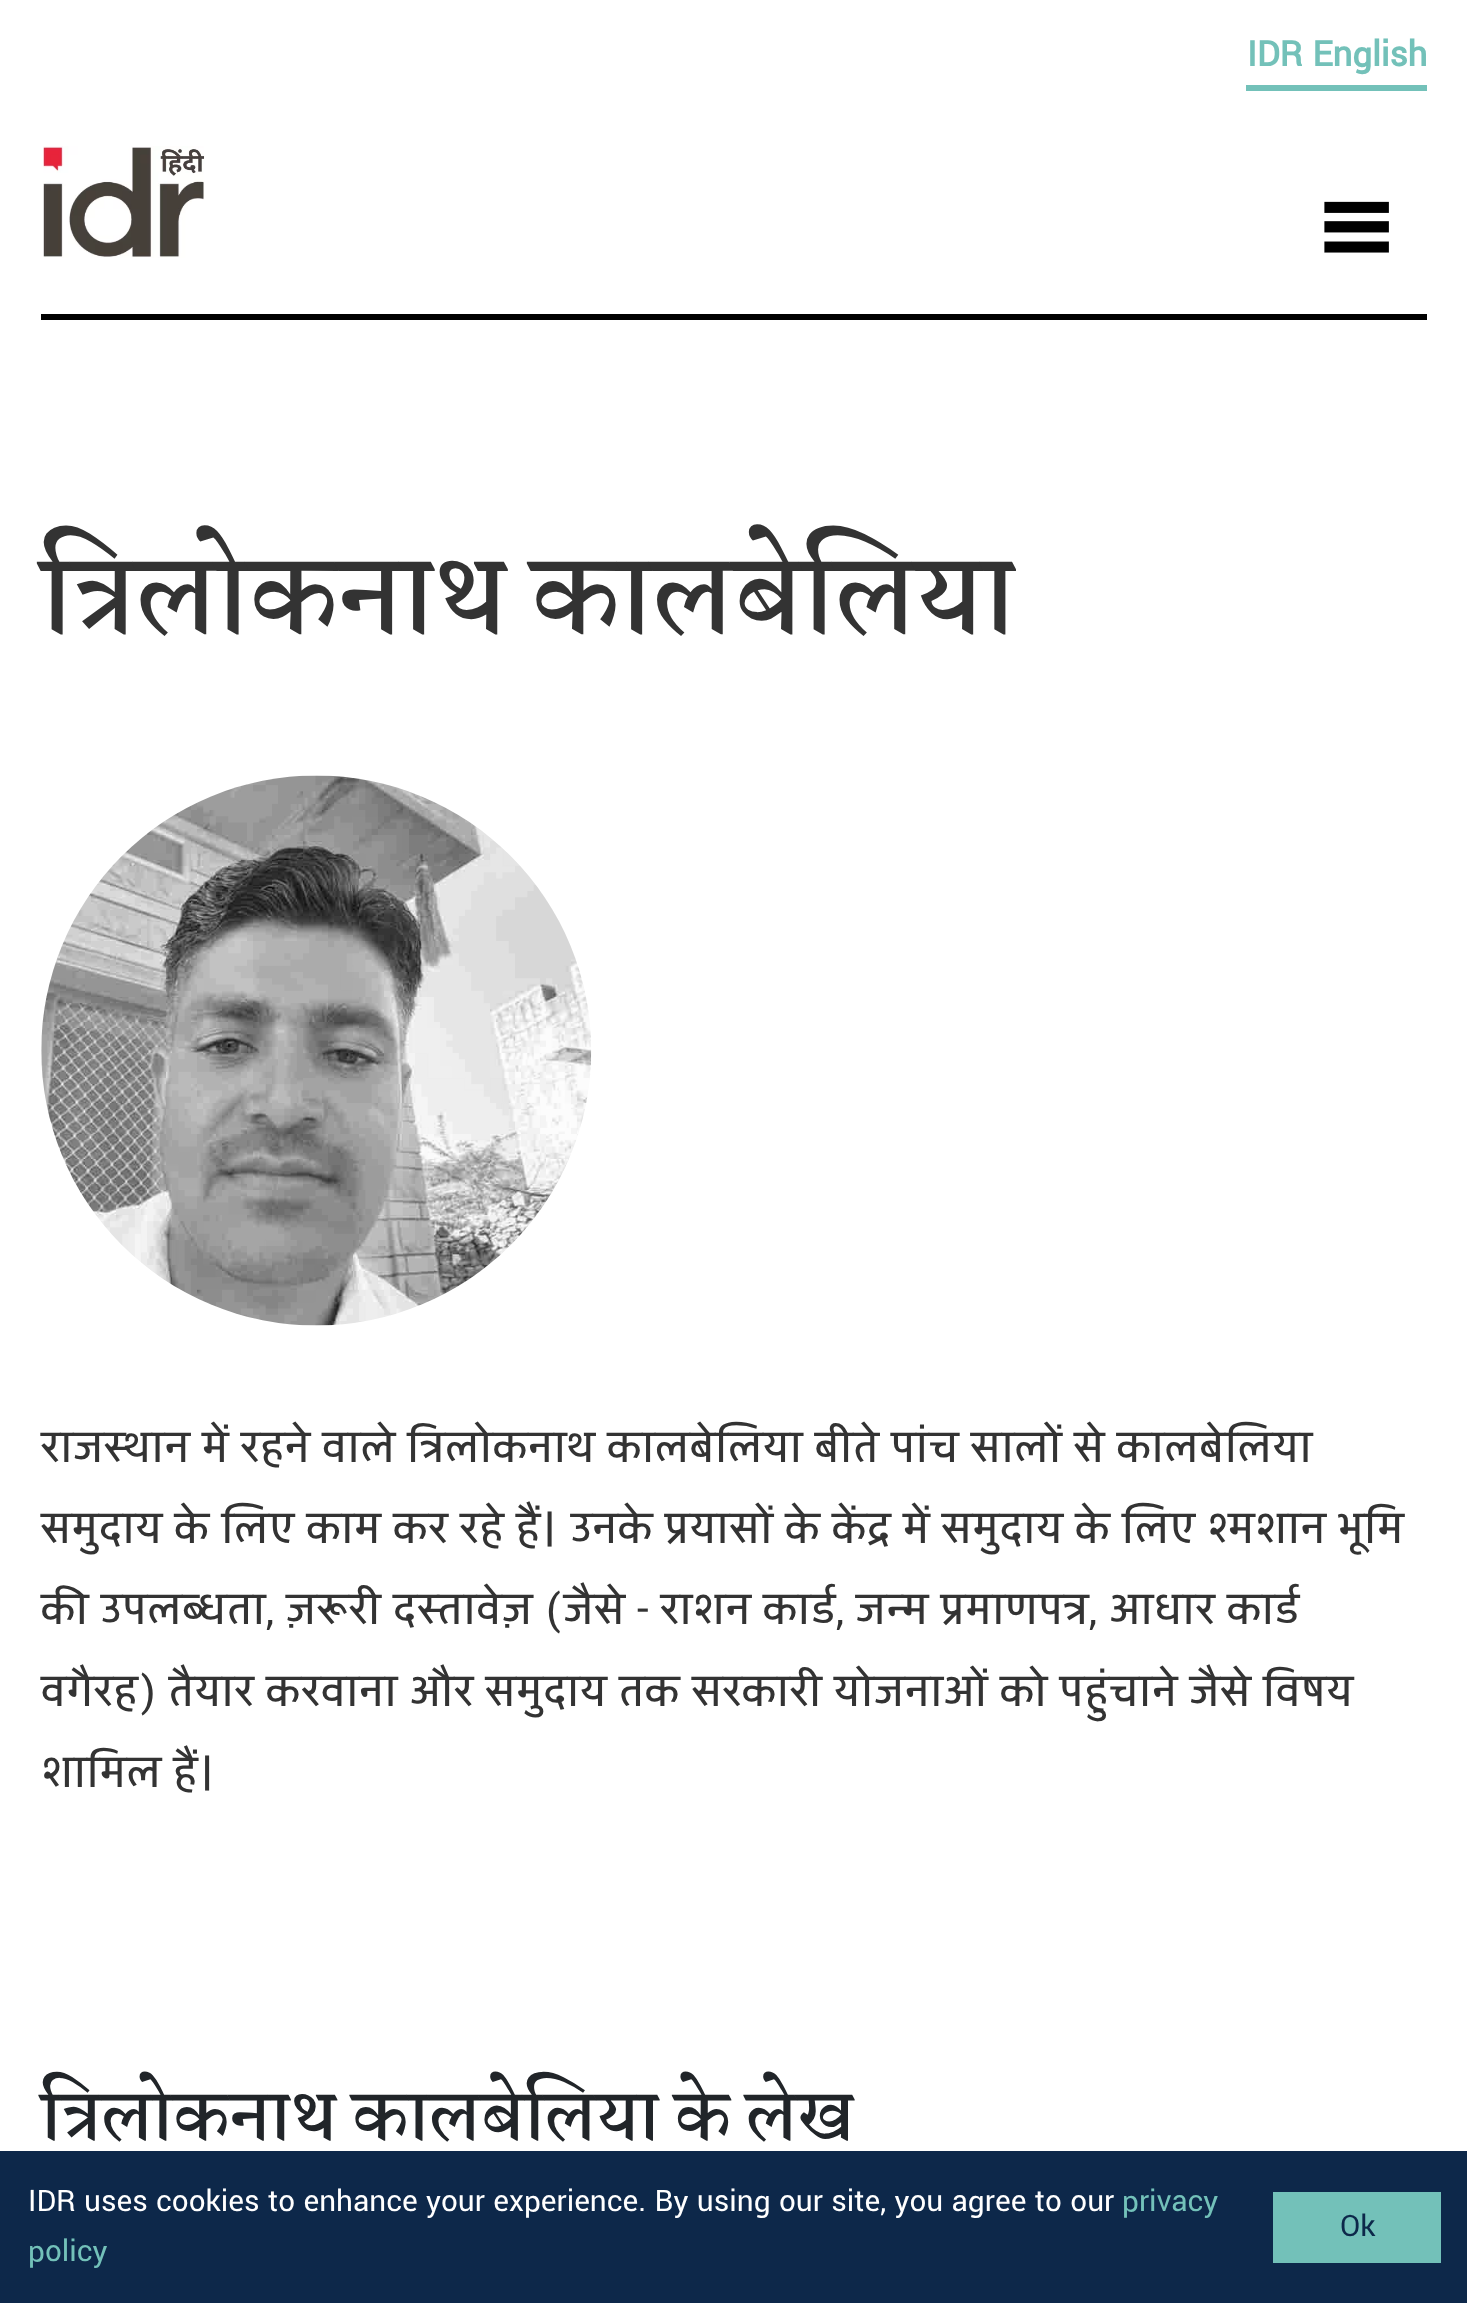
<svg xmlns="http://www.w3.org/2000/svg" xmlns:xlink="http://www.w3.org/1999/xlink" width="1467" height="2303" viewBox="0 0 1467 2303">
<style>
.cls-1{font:bold 38.5px Yantramanav;fill:#73c1b9}
.cls-2{font:bold 104px Martel;fill:#333333}
.cls-3{font:46.75px Yantramanav;fill:#333333}
.cls-4{font:bold 66px Martel;fill:#212529}
.cls-5{font:33px Yantramanav;fill:#ffffff}
.cls-6{font:33px Yantramanav;fill:#73c1b9}
.cls-7{font:33px Yantramanav;fill:#0d284a}
</style>
<rect width="100%" height="100%" fill="#ffffff"/>
<rect fill="#73c1b9" x="1246" y="85" width="181" height="6"/>
<rect fill="#000000" x="41" y="314" width="1386" height="6"/>
<image xlink:href="image0.png" x="43" y="146" width="162" height="112"/>
<image xlink:href="image1.png" x="1324" y="201" width="65" height="52"/>
<image xlink:href="image2.png" x="41" y="775" width="551" height="551"/>
<rect fill="#0d284a" x="0" y="2151" width="1467" height="152"/>
<rect fill="#73c1b9" x="1273" y="2192" width="168" height="71"/>
<text class="cls-1" x="1247" y="66">IDR English</text>
<text class="cls-2" x="41" y="630">त्रिलोकनाथ कालबेलिया</text>
<text class="cls-3"><tspan x="41" y="1462">राजस्थान में रहने वाले त्रिलोकनाथ कालबेलिया बीते पांच सालों से कालबेलिया</tspan><tspan x="41" y="1543">समुदाय के लिए काम कर रहे हैं। उनके प्रयासों के केंद्र में समुदाय के लिए श्मशान भूमि</tspan><tspan x="41" y="1624">की उपलब्धता, ज़रूरी दस्तावेज़ (जैसे - राशन कार्ड, जन्म प्रमाणपत्र, आधार कार्ड</tspan><tspan x="41" y="1706">वगैरह) तैयार करवाना और समुदाय तक सरकारी योजनाओं को पहुंचाने जैसे विषय</tspan><tspan x="41" y="1787">शामिल हैं।</tspan></text>
<text class="cls-4" x="41" y="2138">त्रिलोकनाथ कालबेलिया के लेख</text>
<text class="cls-5" x="28" y="2211">IDR uses cookies to enhance your experience. By using our site, you agree to our</text>
<text class="cls-6" x="1122" y="2211">privacy</text>
<text class="cls-6" x="28" y="2261">policy</text>
<text class="cls-7" x="1340" y="2236">Ok</text>
</svg>
